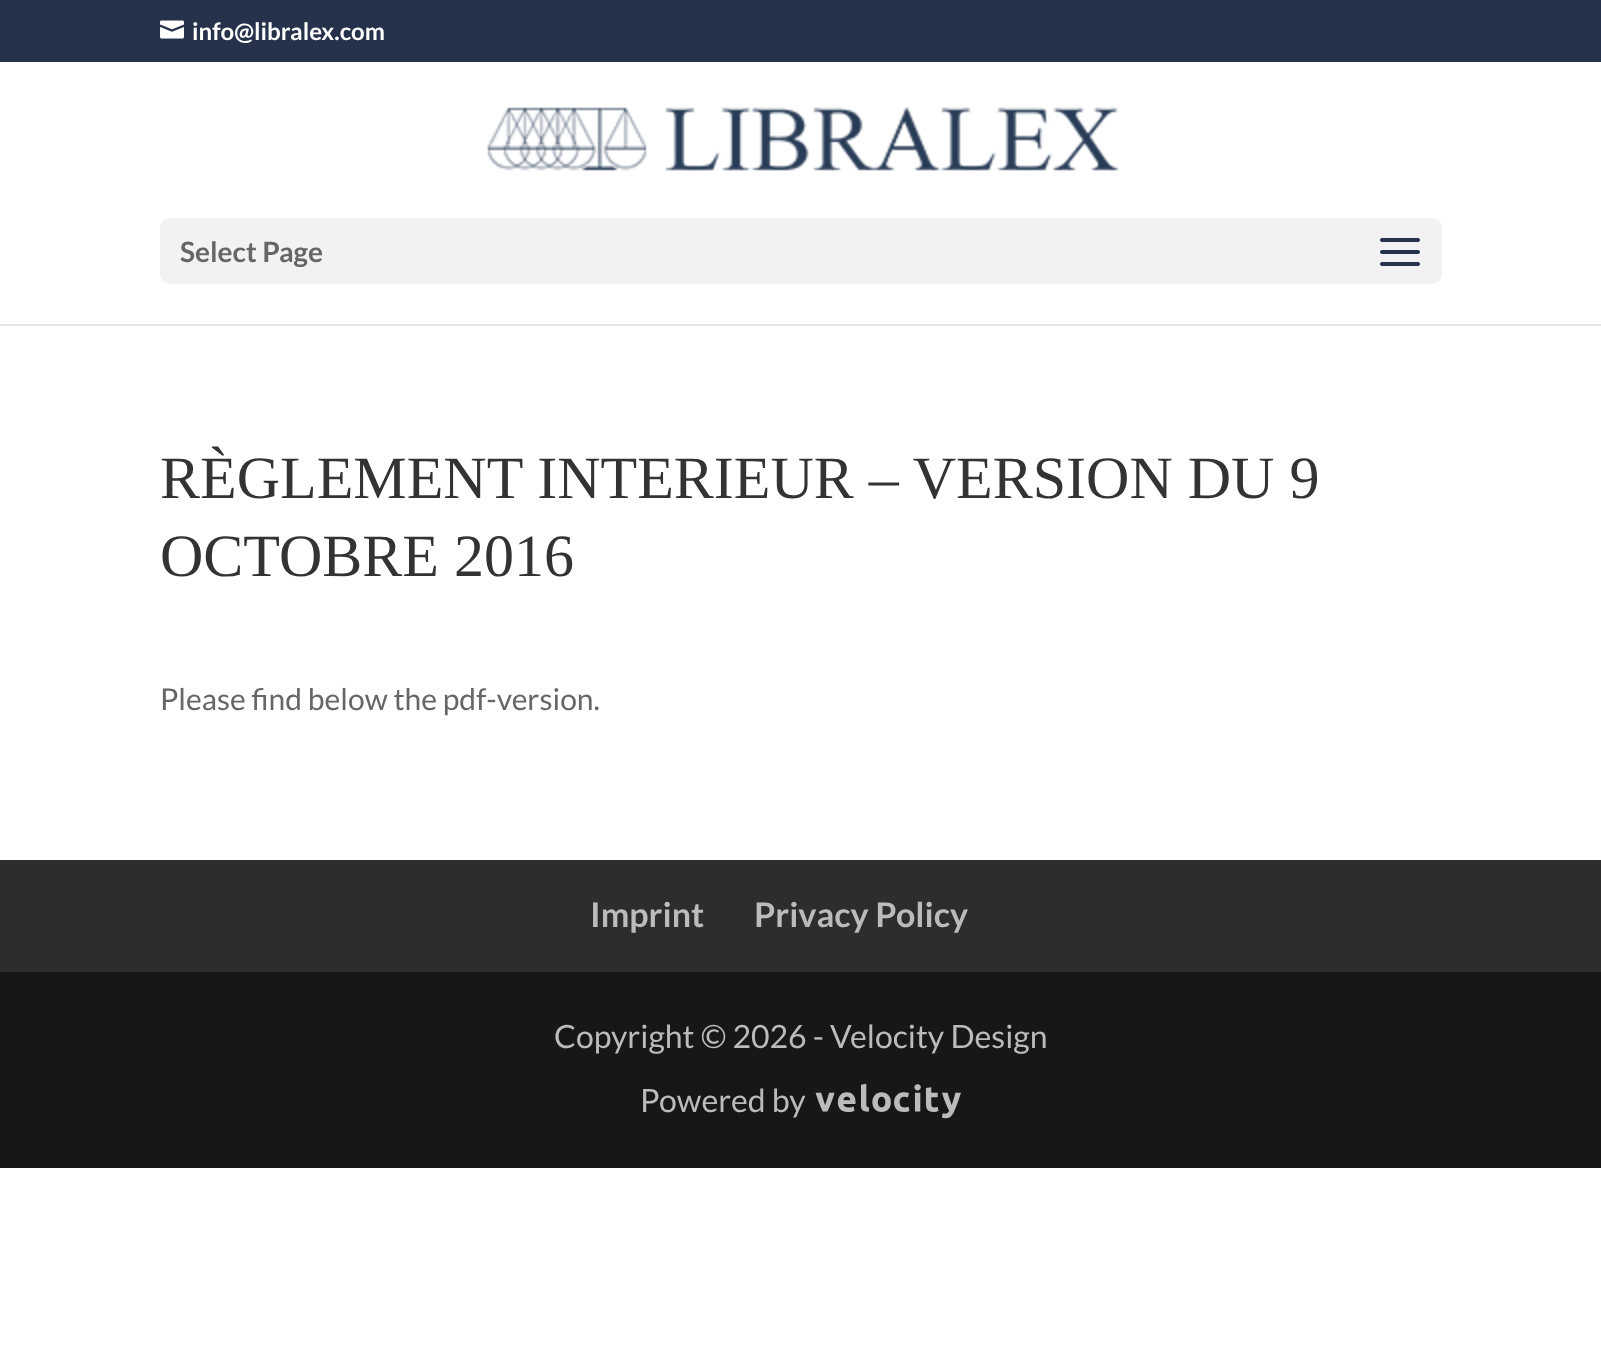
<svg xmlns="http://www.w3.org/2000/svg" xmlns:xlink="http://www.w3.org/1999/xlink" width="1601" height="1372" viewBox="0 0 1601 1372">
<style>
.cls-1{font:bold 24px Lato;fill:#ffffff}
.cls-2{font:bold 28px Lato;fill:#666666}
.cls-3{font:60px Liberation Serif;fill:#333333}
.cls-4{font:30px Lato;fill:#666666}
.cls-5{font:bold 34px Lato;fill:#bbbbbb}
.cls-6{font:32px Lato;fill:#bbbbbb}
.cls-7{font:32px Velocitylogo;fill:#bbbbbb}
</style>
<rect width="100%" height="100%" fill="#ffffff"/>
<rect fill="#26324c" x="0" y="0" width="1601" height="62"/>
<image xlink:href="image0.png" x="160" y="20" width="24" height="19"/>
<rect fill="#e6e6e6" x="0" y="324" width="1601" height="2"/>
<image xlink:href="image1.png" x="487" y="107" width="632" height="64"/>
<rect fill="#f2f2f2" x="160" y="218" width="1282" height="66" rx="10"/>
<image xlink:href="image2.png" x="1380" y="238" width="40" height="28"/>
<rect fill="#2d2d2d" x="0" y="860" width="1601" height="112"/>
<rect fill="#171717" x="0" y="972" width="1601" height="196"/>
<text class="cls-1" x="192" y="40">info@libralex.com</text>
<text class="cls-2" x="180" y="262">Select Page</text>
<text class="cls-3"><tspan x="160" y="498">RÈGLEMENT INTERIEUR – VERSION DU 9</tspan><tspan x="160" y="576">OCTOBRE 2016</tspan></text>
<text class="cls-4" x="160" y="710">Please find below the pdf-version.</text>
<text class="cls-5" x="590" y="927">Imprint</text>
<text class="cls-5" x="754" y="927">Privacy Policy</text>
<text class="cls-6" x="554" y="1048">Copyright © 2026 - Velocity Design</text>
<text class="cls-6" x="640" y="1112">Powered by</text>
<text class="cls-7" x="814" y="1112">Velocity</text>
</svg>
